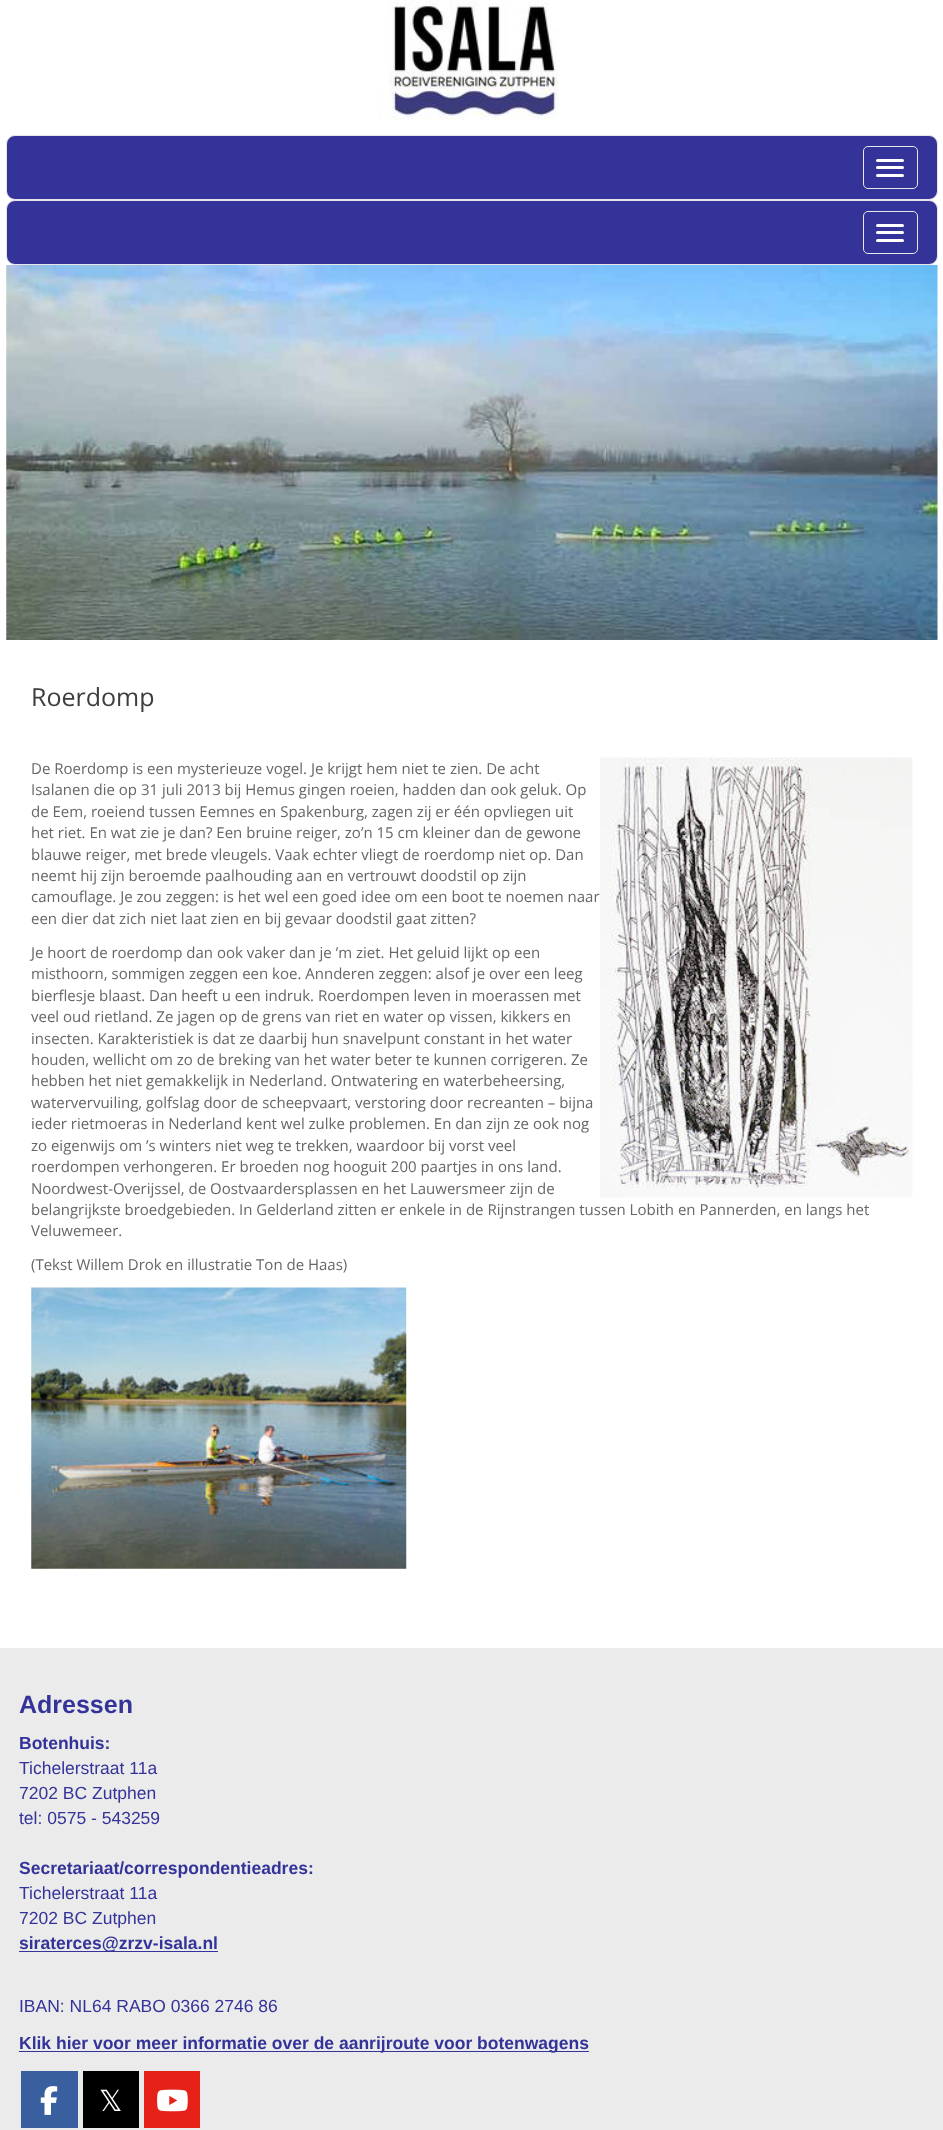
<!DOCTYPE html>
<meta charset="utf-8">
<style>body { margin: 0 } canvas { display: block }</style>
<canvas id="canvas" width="943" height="2130"></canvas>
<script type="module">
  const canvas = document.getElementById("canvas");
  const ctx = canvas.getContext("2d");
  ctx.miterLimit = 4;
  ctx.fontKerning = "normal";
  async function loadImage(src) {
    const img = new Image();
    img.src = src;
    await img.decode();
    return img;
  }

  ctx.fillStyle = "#ffffff";
  ctx.fillRect(0, 0, 943, 2130);
  ctx.drawImage(await loadImage("img1.png"), 379, 0, 180, 121);
  ctx.fillStyle = "#343399";
  ctx.beginPath();
  ctx.roundRect(6.5, 135.5, 931, 64, 8.5);
  ctx.fill();
  ctx.strokeStyle = "#e7e7e7";
  ctx.stroke();
  ctx.beginPath();
  ctx.roundRect(863.5, 146.5, 54, 42, 4.5);
  ctx.stroke();
  ctx.fillStyle = "#ffffff";
  ctx.beginPath();
  ctx.roundRect(876, 159, 28, 3, 1.5);
  ctx.fill();
  ctx.beginPath();
  ctx.roundRect(876, 166, 28, 3, 1.5);
  ctx.fill();
  ctx.beginPath();
  ctx.roundRect(876, 174, 28, 3, 1.5);
  ctx.fill();
  ctx.fillStyle = "#343399";
  ctx.beginPath();
  ctx.roundRect(6.5, 200.5, 931, 64, 8.5);
  ctx.fill();
  ctx.stroke();
  ctx.beginPath();
  ctx.roundRect(863.5, 211.5, 54, 42, 4.5);
  ctx.stroke();
  ctx.fillStyle = "#ffffff";
  ctx.beginPath();
  ctx.roundRect(876, 224, 28, 3, 1.5);
  ctx.fill();
  ctx.beginPath();
  ctx.roundRect(876, 231, 28, 3, 1.5);
  ctx.fill();
  ctx.beginPath();
  ctx.roundRect(876, 239, 28, 3, 1.5);
  ctx.fill();
  ctx.drawImage(await loadImage("img2.png"), 6, 265, 932, 375);
  ctx.font = "25px Open Sans";
  ctx.fillStyle = "#3d3d3d";
  ctx.fillText("Roerdomp", 31, 706);
  ctx.font = "15px Open Sans";
  ctx.fillStyle = "#666666";
  ctx.fillText("De Roerdomp is een mysterieuze vogel. Je krijgt hem niet te zien. De acht", 31, 774);
  ctx.fillText("Isalanen die op 31 juli 2013 bij Hemus gingen roeien, hadden dan ook geluk. Op", 31, 795);
  ctx.fillText("de Eem, roeiend tussen Eemnes en Spakenburg, zagen zij er één opvliegen uit", 31, 817);
  ctx.fillText("het riet. En wat zie je dan? Een bruine reiger, zo’n 15 cm kleiner dan de gewone", 31, 838);
  ctx.fillText("blauwe reiger, met brede vleugels. Vaak echter vliegt de roerdomp niet op. Dan", 31, 860);
  ctx.fillText("neemt hij zijn beroemde paalhouding aan en vertrouwt doodstil op zijn", 31, 881);
  ctx.fillText("camouflage. Je zou zeggen: is het wel een goed idee om een boot te noemen naar", 31, 902);
  ctx.fillText("een dier dat zich niet laat zien en bij gevaar doodstil gaat zitten?", 31, 924);
  ctx.drawImage(await loadImage("img3.png"), 600, 757, 313, 441);
  ctx.fillText("Je hoort de roerdomp dan ook vaker dan je ’m ziet. Het geluid lijkt op een", 31, 958);
  ctx.fillText("misthoorn, sommigen zeggen een koe. Annderen zeggen: alsof je over een leeg", 31, 979);
  ctx.fillText("bierflesje blaast. Dan heeft u een indruk. Roerdompen leven in moerassen met", 31, 1001);
  ctx.fillText("veel oud rietland. Ze jagen op de grens van riet en water op vissen, kikkers en", 31, 1022);
  ctx.fillText("insecten. Karakteristiek is dat ze daarbij hun snavelpunt constant in het water", 31, 1044);
  ctx.fillText("houden, wellicht om zo de breking van het water beter te kunnen corrigeren. Ze", 31, 1065);
  ctx.fillText("hebben het niet gemakkelijk in Nederland. Ontwatering en waterbeheersing,", 31, 1086);
  ctx.fillText("watervervuiling, golfslag door de scheepvaart, verstoring door recreanten – bijna", 31, 1108);
  ctx.fillText("ieder rietmoeras in Nederland kent wel zulke problemen. En dan zijn ze ook nog", 31, 1129);
  ctx.fillText("zo eigenwijs om ’s winters niet weg te trekken, waardoor bij vorst veel", 31, 1151);
  ctx.fillText("roerdompen verhongeren. Er broeden nog hooguit 200 paartjes in ons land.", 31, 1172);
  ctx.fillText("Noordwest-Overijssel, de Oostvaardersplassen en het Lauwersmeer zijn de", 31, 1194);
  ctx.fillText("belangrijkste broedgebieden. In Gelderland zitten er enkele in de Rijnstrangen tussen Lobith en Pannerden, en langs het", 31, 1215);
  ctx.fillText("Veluwemeer.", 31, 1236);
  ctx.fillText("(Tekst Willem Drok en illustratie Ton de Haas)", 31, 1270);
  ctx.drawImage(await loadImage("img4.png"), 31, 1287, 376, 282);
  ctx.fillStyle = "#ebebeb";
  ctx.fillRect(0, 1648, 943, 482);
  ctx.font = "bold 25px Liberation Sans";
  ctx.fillStyle = "#343399";
  ctx.fillText("Adressen", 19, 1713);
  ctx.font = "bold 17.5px Liberation Sans";
  ctx.fillText("Botenhuis:", 19, 1749);
  ctx.font = "17.5px Liberation Sans";
  ctx.fillText("Tichelerstraat 11a", 19, 1774);
  ctx.fillText("7202 BC Zutphen", 19, 1799);
  ctx.fillText("tel: 0575 - 543259", 19, 1824);
  ctx.font = "bold 17.5px Liberation Sans";
  ctx.fillText("Secretariaat/correspondentieadres:", 19, 1874);
  ctx.font = "17.5px Liberation Sans";
  ctx.fillText("Tichelerstraat 11a", 19, 1899);
  ctx.fillText("7202 BC Zutphen", 19, 1924);
  ctx.fillRect(19, 1951, 199, 1);
  ctx.font = "bold 17.5px Liberation Sans";
  ctx.fillText("siraterces@zrzv-isala.nl", 19, 1949);
  ctx.font = "17.5px Liberation Sans";
  ctx.fillText("IBAN: NL64 RABO 0366 2746 86", 19, 2012);
  ctx.fillRect(19, 2051, 570, 1);
  ctx.font = "bold 17.5px Liberation Sans";
  ctx.fillText("Klik hier voor meer informatie over de aanrijroute voor botenwagens", 19, 2049);
  ctx.fillStyle = "#395f9e";
  ctx.fillRect(21, 2071, 57, 57);
  ctx.drawImage(await loadImage("img5.png"), 40, 2086, 18, 29);
  ctx.fillStyle = "#000000";
  ctx.fillRect(83, 2071, 56, 57);
  ctx.font = "29px DejaVu Sans";
  ctx.fillStyle = "#ffffff";
  ctx.fillText("𝕏", 99, 2111);
  ctx.fillStyle = "#e62117";
  ctx.fillRect(144, 2071, 56, 57);
  ctx.drawImage(await loadImage("img6.png"), 157, 2089, 31, 23);
</script>
